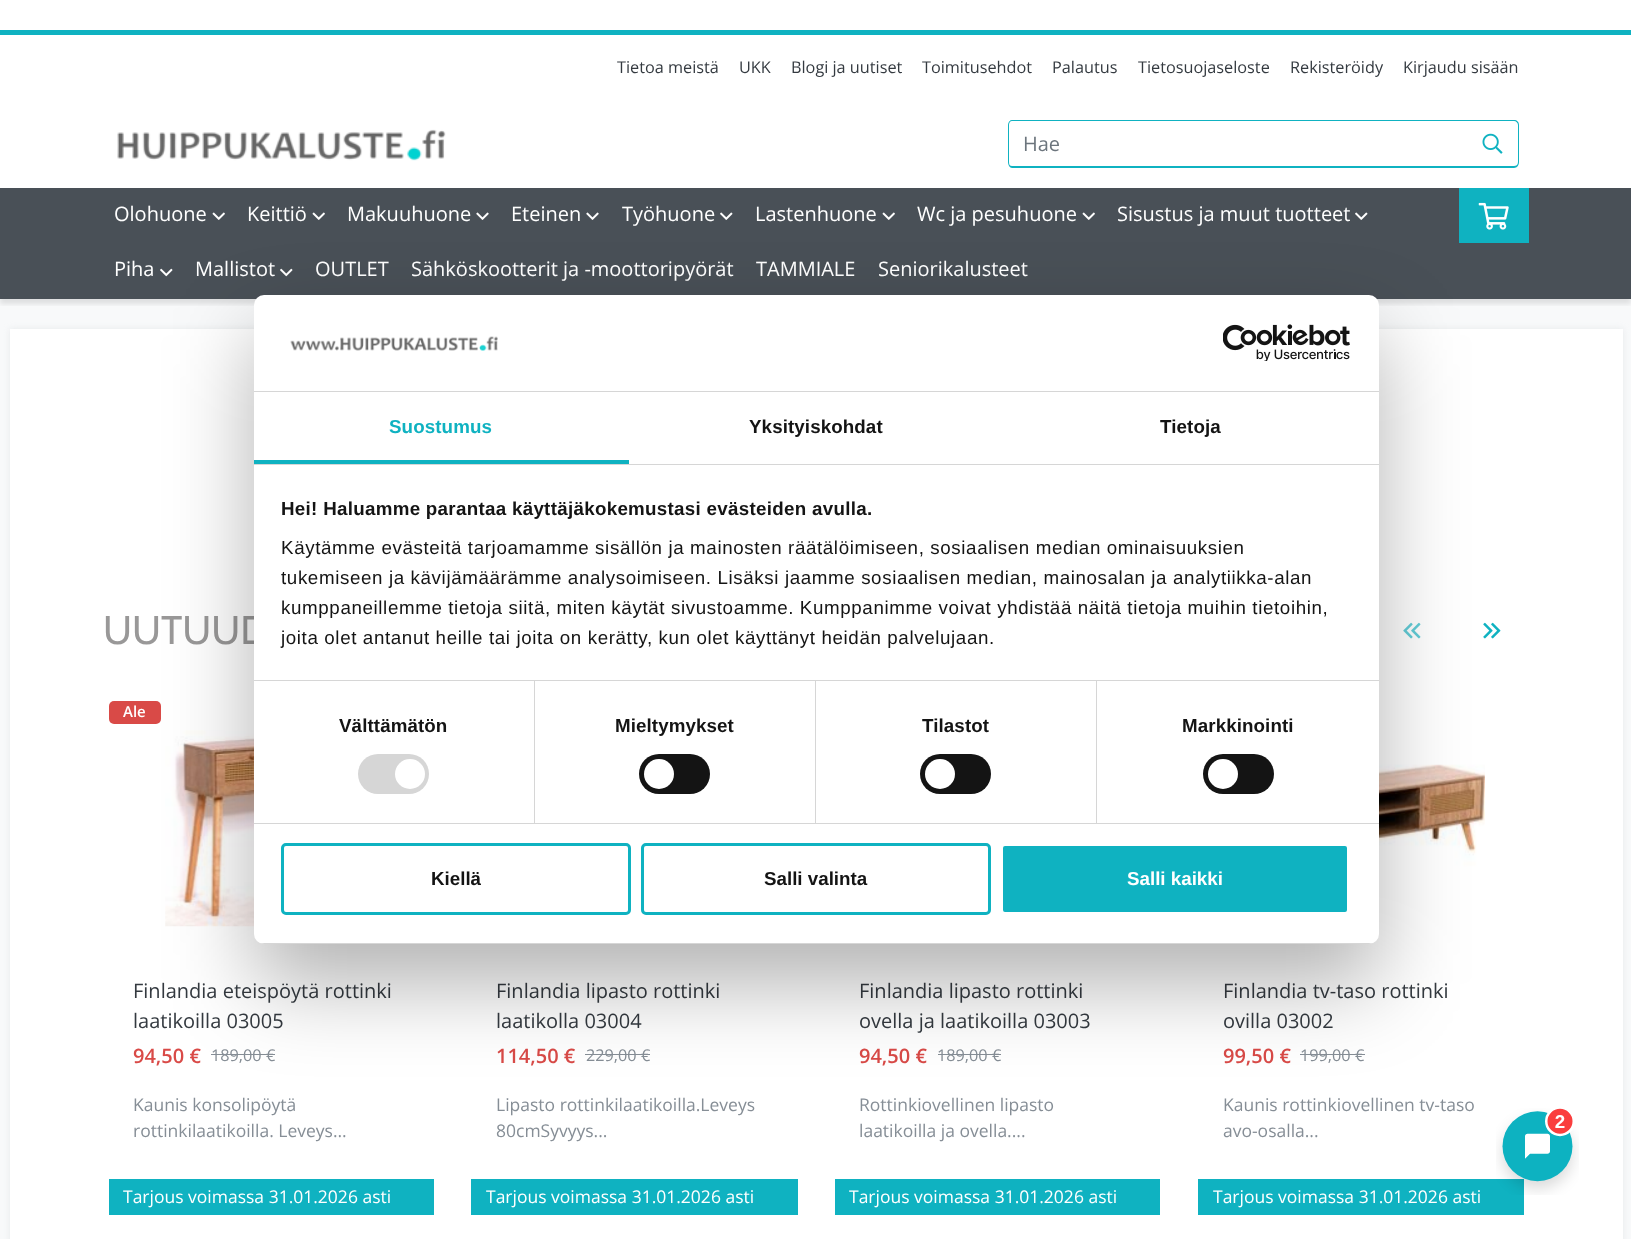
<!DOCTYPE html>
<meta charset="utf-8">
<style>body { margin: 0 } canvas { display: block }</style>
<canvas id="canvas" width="1631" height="1239"></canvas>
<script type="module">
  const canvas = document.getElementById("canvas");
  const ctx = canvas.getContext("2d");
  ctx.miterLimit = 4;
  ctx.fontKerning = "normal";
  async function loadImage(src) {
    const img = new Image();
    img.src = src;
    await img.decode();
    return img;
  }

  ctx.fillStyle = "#ffffff";
  ctx.fillRect(0, 0, 1631, 1239);
  ctx.fillStyle = "#f8f9fa";
  ctx.fillRect(0, 299, 1631, 940);
  ctx.save();
  ctx.beginPath();
  ctx.rect(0, 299, 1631, 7);
  ctx.clip();
  ctx.fillStyle = "rgba(0, 0, 0, 0.1)";
  ctx.filter = "blur(2.5px)";
  ctx.beginPath();
  ctx.rect(0, 35, 1631, 269);
  ctx.fill();
  ctx.filter = "none";
  ctx.restore();
  ctx.fillStyle = "#0fb2c1";
  ctx.fillRect(0, 30, 1631, 5);
  ctx.font = "16.25px Open Sans";
  ctx.fillStyle = "#343a40";
  ctx.fillText("Tietoa meistä", 617, 73);
  ctx.fillText("UKK", 739, 73);
  ctx.fillText("Blogi ja uutiset", 791, 73);
  ctx.fillText("Toimitusehdot", 922, 73);
  ctx.fillText("Palautus", 1052, 73);
  ctx.fillText("Tietosuojaseloste", 1138, 73);
  ctx.fillText("Rekisteröidy", 1290, 73);
  ctx.fillText("Kirjaudu sisään", 1403, 73);
  ctx.drawImage(await loadImage("img1.png"), 117, 129, 329, 32);
  ctx.fillStyle = "#0fb2c1";
  ctx.beginPath();
  ctx.moveTo(1012, 120);
  ctx.lineTo(1469, 120);
  ctx.lineTo(1469, 168);
  ctx.lineTo(1012, 168);
  ctx.bezierCurveTo(1010, 168, 1008, 165, 1008, 162);
  ctx.lineTo(1008, 125);
  ctx.bezierCurveTo(1008, 122, 1010, 120, 1012, 120);
  ctx.closePath();
  ctx.moveTo(1012, 121);
  ctx.lineTo(1469, 121);
  ctx.lineTo(1469, 166);
  ctx.lineTo(1012, 166);
  ctx.bezierCurveTo(1010, 166, 1009, 165, 1009, 162);
  ctx.lineTo(1009, 125);
  ctx.bezierCurveTo(1009, 123, 1010, 121, 1012, 121);
  ctx.closePath();
  ctx.fill("evenodd");
  ctx.font = "20px Open Sans";
  ctx.fillStyle = "#6c757d";
  ctx.fillText("Hae", 1023, 151);
  ctx.fillStyle = "#0fb2c1";
  ctx.beginPath();
  ctx.moveTo(1468, 120);
  ctx.lineTo(1514, 120);
  ctx.bezierCurveTo(1517, 120, 1519, 122, 1519, 125);
  ctx.lineTo(1519, 162);
  ctx.bezierCurveTo(1519, 165, 1517, 168, 1514, 168);
  ctx.lineTo(1468, 168);
  ctx.closePath();
  ctx.moveTo(1468, 121);
  ctx.lineTo(1514, 121);
  ctx.bezierCurveTo(1516, 121, 1518, 123, 1518, 125);
  ctx.lineTo(1518, 162);
  ctx.bezierCurveTo(1518, 165, 1516, 166, 1514, 166);
  ctx.lineTo(1468, 166);
  ctx.closePath();
  ctx.fill("evenodd");
  ctx.drawImage(await loadImage("img2.png"), 1482, 133, 21, 21);
  ctx.fillStyle = "#495057";
  ctx.fillRect(0, 188, 1631, 111);
  ctx.fillStyle = "#ffffff";
  ctx.fillText("Olohuone", 114, 221);
  ctx.drawImage(await loadImage("img3.png"), 212, 212, 13, 8);
  ctx.fillText("Keittiö", 247, 221);
  ctx.drawImage(await loadImage("img3.png"), 312, 212, 13, 8);
  ctx.fillText("Makuuhuone", 347, 221);
  ctx.drawImage(await loadImage("img4.png"), 476, 212, 13, 8);
  ctx.fillText("Eteinen", 511, 221);
  ctx.drawImage(await loadImage("img4.png"), 586, 212, 13, 8);
  ctx.fillText("Työhuone", 622, 221);
  ctx.drawImage(await loadImage("img5.png"), 720, 212, 13, 8);
  ctx.fillText("Lastenhuone", 755, 221);
  ctx.drawImage(await loadImage("img3.png"), 882, 212, 13, 8);
  ctx.fillText("Wc ja pesuhuone", 917, 221);
  ctx.drawImage(await loadImage("img3.png"), 1082, 212, 13, 8);
  ctx.fillText("Sisustus ja muut tuotteet", 1117, 221);
  ctx.drawImage(await loadImage("img5.png"), 1355, 212, 13, 8);
  ctx.fillText("Piha", 114, 276);
  ctx.drawImage(await loadImage("img6.png"), 160, 268, 13, 9);
  ctx.fillText("Mallistot", 195, 276);
  ctx.drawImage(await loadImage("img6.png"), 280, 268, 13, 9);
  ctx.fillText("OUTLET", 315, 276);
  ctx.fillText("Sähköskootterit ja -moottoripyörät", 411, 276);
  ctx.fillText("TAMMIALE", 756, 276);
  ctx.fillText("Seniorikalusteet", 878, 276);
  ctx.fillStyle = "#0fb2c1";
  ctx.fillRect(1459, 188, 70, 55);
  ctx.drawImage(await loadImage("img7.png"), 1478, 202, 31, 28);
  ctx.fillStyle = "rgba(222, 226, 230, 0.7)";
  ctx.filter = "blur(3px)";
  ctx.beginPath();
  ctx.rect(10, 329, 1613, 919);
  ctx.fill();
  ctx.filter = "none";
  ctx.fillStyle = "#ffffff";
  ctx.fillRect(10, 329, 1613, 910);
  ctx.font = "40px Cabin";
  ctx.fillStyle = "#999898";
  ctx.fillText("UUTUUD", 103, 644);
  ctx.drawImage(await loadImage("img8.png"), 1403, 622, 18, 17);
  ctx.drawImage(await loadImage("img9.png"), 1483, 622, 18, 17);
  ctx.fillStyle = "#d94a47";
  ctx.beginPath();
  ctx.roundRect(109, 701, 52, 23, 5);
  ctx.fill();
  ctx.font = "600 15px Open Sans";
  ctx.fillStyle = "#ffffff";
  ctx.fillText("Ale", 123, 717);
  ctx.drawImage(await loadImage("img10.png"), 165, 730, 89, 197);
  ctx.font = "20px Open Sans";
  ctx.fillStyle = "#343a40";
  ctx.fillText("Finlandia eteispöytä rottinki", 133, 998);
  ctx.fillText("laatikoilla 03005", 133, 1028);
  ctx.font = "600 20px Open Sans";
  ctx.fillStyle = "#d94a47";
  ctx.fillText("94,50 €", 133, 1063);
  ctx.font = "16.25px Open Sans";
  ctx.fillStyle = "#868e96";
  ctx.fillText("189,00 €", 211, 1061);
  ctx.fillRect(211, 1054, 64, 1);
  ctx.font = "17.5px Open Sans";
  ctx.fillText("Kaunis konsolipöytä", 133, 1111);
  ctx.fillText("rottinkilaatikoilla. Leveys...", 133, 1137);
  ctx.fillStyle = "#0fb2c1";
  ctx.fillRect(109, 1179, 325, 36);
  ctx.fillStyle = "#ffffff";
  ctx.fillText("Tarjous voimassa 31.01.2026 asti", 123, 1203);
  ctx.font = "20px Open Sans";
  ctx.fillStyle = "#343a40";
  ctx.fillText("Finlandia lipasto rottinki", 496, 998);
  ctx.fillText("laatikolla 03004", 496, 1028);
  ctx.font = "600 20px Open Sans";
  ctx.fillStyle = "#d94a47";
  ctx.fillText("114,50 €", 496, 1063);
  ctx.font = "16.25px Open Sans";
  ctx.fillStyle = "#868e96";
  ctx.fillText("229,00 €", 586, 1061);
  ctx.fillRect(585, 1054, 65, 1);
  ctx.font = "17.5px Open Sans";
  ctx.fillText("Lipasto rottinkilaatikoilla.Leveys", 496, 1111);
  ctx.fillText("80cmSyvyys...", 496, 1137);
  ctx.fillStyle = "#0fb2c1";
  ctx.fillRect(471, 1179, 327, 36);
  ctx.fillStyle = "#ffffff";
  ctx.fillText("Tarjous voimassa 31.01.2026 asti", 486, 1203);
  ctx.font = "20px Open Sans";
  ctx.fillStyle = "#343a40";
  ctx.fillText("Finlandia lipasto rottinki", 859, 998);
  ctx.fillText("ovella ja laatikoilla 03003", 859, 1028);
  ctx.font = "600 20px Open Sans";
  ctx.fillStyle = "#d94a47";
  ctx.fillText("94,50 €", 859, 1063);
  ctx.font = "16.25px Open Sans";
  ctx.fillStyle = "#868e96";
  ctx.fillText("189,00", 937, 1061);
  ctx.fillRect(938, 1054, 55, 1);
  ctx.fillText("€", 992, 1061);
  ctx.fillRect(993, 1054, 8, 1);
  ctx.font = "17.5px Open Sans";
  ctx.fillText("Rottinkiovellinen lipasto", 859, 1111);
  ctx.fillText("laatikoilla ja ovella....", 859, 1137);
  ctx.fillStyle = "#0fb2c1";
  ctx.fillRect(835, 1179, 325, 36);
  ctx.fillStyle = "#ffffff";
  ctx.fillText("Tarjous voimassa 31.01.2026 asti", 849, 1203);
  ctx.drawImage(await loadImage("img11.png"), 1379, 764, 106, 124);
  ctx.font = "20px Open Sans";
  ctx.fillStyle = "#343a40";
  ctx.fillText("Finlandia tv-taso rottinki", 1223, 998);
  ctx.fillText("ovilla 03002", 1223, 1028);
  ctx.font = "600 20px Open Sans";
  ctx.fillStyle = "#d94a47";
  ctx.fillText("99,50 €", 1223, 1063);
  ctx.font = "16.25px Open Sans";
  ctx.fillStyle = "#868e96";
  ctx.fillText("199,00 €", 1300, 1061);
  ctx.fillRect(1300, 1054, 65, 1);
  ctx.font = "17.5px Open Sans";
  ctx.fillText("Kaunis rottinkiovellinen tv-taso", 1223, 1111);
  ctx.fillText("avo-osalla...", 1223, 1137);
  ctx.fillStyle = "#0fb2c1";
  ctx.fillRect(1198, 1179, 326, 36);
  ctx.fillStyle = "#ffffff";
  ctx.fillText("Tarjous voimassa 31.01.2026 asti", 1213, 1203);
  ctx.drawImage(await loadImage("img14.png"), 1496, 1108, 83, 87);
  ctx.fillStyle = "rgba(0, 0, 0, 0.3)";
  ctx.filter = "blur(42.5px)";
  ctx.beginPath();
  ctx.roundRect(254, 335, 1125, 649, 10);
  ctx.fill();
  ctx.filter = "none";
  ctx.fillStyle = "#ffffff";
  ctx.beginPath();
  ctx.roundRect(254, 295, 1125, 649, 10);
  ctx.fill();
  ctx.fillStyle = "#d6d6d6";
  ctx.fillRect(254, 391, 1125, 1);
  ctx.drawImage(await loadImage("img12.png"), 290, 336, 208, 15);
  ctx.drawImage(await loadImage("img13.png"), 1223, 324, 127, 37);
  ctx.fillRect(254, 464, 1125, 1);
  ctx.fillStyle = "#0fb2c1";
  ctx.fillRect(254, 460, 375, 4);
  ctx.letterSpacing = "0.1px";
  ctx.font = "bold 18.75px Liberation Sans";
  ctx.fillText("Suostumus", 389, 433);
  ctx.fillStyle = "#141414";
  ctx.fillText("Yksityiskohdat", 749, 433);
  ctx.fillText("Tietoja", 1160, 433);
  ctx.fillStyle = "#d6d6d6";
  ctx.fillRect(254, 680, 1125, 1);
  ctx.letterSpacing = "0.3px";
  ctx.fillStyle = "#141414";
  ctx.fillText("Hei! Haluamme parantaa käyttäjäkokemustasi evästeiden avulla.", 281, 515);
  ctx.letterSpacing = "0.62px";
  ctx.font = "18.75px Liberation Sans";
  ctx.fillText("Käytämme evästeitä tarjoamamme sisällön ja mainosten räätälöimiseen, sosiaalisen median ominaisuuksien", 281, 554);
  ctx.fillText("tukemiseen ja kävijämäärämme analysoimiseen. Lisäksi jaamme sosiaalisen median, mainosalan ja analytiikka-alan", 281, 584);
  ctx.fillText("kumppaneillemme tietoja siitä, miten käytät sivustoamme. Kumppanimme voivat yhdistää näitä tietoja muihin tietoihin,", 281, 614);
  ctx.fillText("joita olet antanut heille tai joita on kerätty, kun olet käyttänyt heidän palvelujaan.", 281, 644);
  ctx.fillStyle = "#d6d6d6";
  ctx.fillRect(254, 823, 1125, 1);
  ctx.fillRect(534, 681, 1, 142);
  ctx.letterSpacing = "0.1px";
  ctx.font = "bold 18.75px Liberation Sans";
  ctx.fillStyle = "#141414";
  ctx.fillText("Välttämätön", 339, 732);
  ctx.fillStyle = "#d6d6d6";
  ctx.beginPath();
  ctx.roundRect(358, 754, 71, 40, 20);
  ctx.fill();
  ctx.fillStyle = "#ffffff";
  ctx.beginPath();
  ctx.arc(410, 774, 15, 0, Math.PI * 2);
  ctx.fill();
  ctx.fillStyle = "#d6d6d6";
  ctx.fillRect(815, 681, 1, 142);
  ctx.fillStyle = "#141414";
  ctx.fillText("Mieltymykset", 615, 732);
  ctx.beginPath();
  ctx.roundRect(639, 754, 71, 40, 20);
  ctx.fill();
  ctx.fillStyle = "#ffffff";
  ctx.beginPath();
  ctx.arc(659, 774, 15, 0, Math.PI * 2);
  ctx.fill();
  ctx.fillStyle = "#d6d6d6";
  ctx.fillRect(1096, 681, 1, 142);
  ctx.fillStyle = "#141414";
  ctx.fillText("Tilastot", 922, 732);
  ctx.beginPath();
  ctx.roundRect(920, 754, 71, 40, 20);
  ctx.fill();
  ctx.fillStyle = "#ffffff";
  ctx.beginPath();
  ctx.arc(940, 774, 15, 0, Math.PI * 2);
  ctx.fill();
  ctx.fillStyle = "#141414";
  ctx.fillText("Markkinointi", 1182, 732);
  ctx.beginPath();
  ctx.roundRect(1203, 754, 71, 40, 20);
  ctx.fill();
  ctx.fillStyle = "#ffffff";
  ctx.beginPath();
  ctx.arc(1223, 774, 15, 0, Math.PI * 2);
  ctx.fill();
  ctx.save();
  ctx.beginPath();
  ctx.roundRect(254, 295, 1125, 649, 10);
  ctx.clip();
  ctx.fillStyle = "#d6d6d6";
  ctx.fillRect(254, 943, 1125, 1);
  ctx.restore();
  ctx.beginPath();
  ctx.roundRect(282.5, 844.5, 347, 69, 3.5);
  ctx.strokeStyle = "#0fb2c1";
  ctx.lineWidth = 3;
  ctx.stroke();
  ctx.letterSpacing = "0px";
  ctx.fillStyle = "#141414";
  ctx.fillText("Kiellä", 431, 885);
  ctx.beginPath();
  ctx.roundRect(642.5, 844.5, 347, 69, 3.5);
  ctx.stroke();
  ctx.fillText("Salli valinta", 764, 885);
  ctx.fillStyle = "#0fb2c1";
  ctx.beginPath();
  ctx.roundRect(1001.5, 844.5, 347, 69, 3.5);
  ctx.fill();
  ctx.strokeStyle = "#ffffff";
  ctx.stroke();
  ctx.fillStyle = "#ffffff";
  ctx.fillText("Salli kaikki", 1127, 885);
</script>
